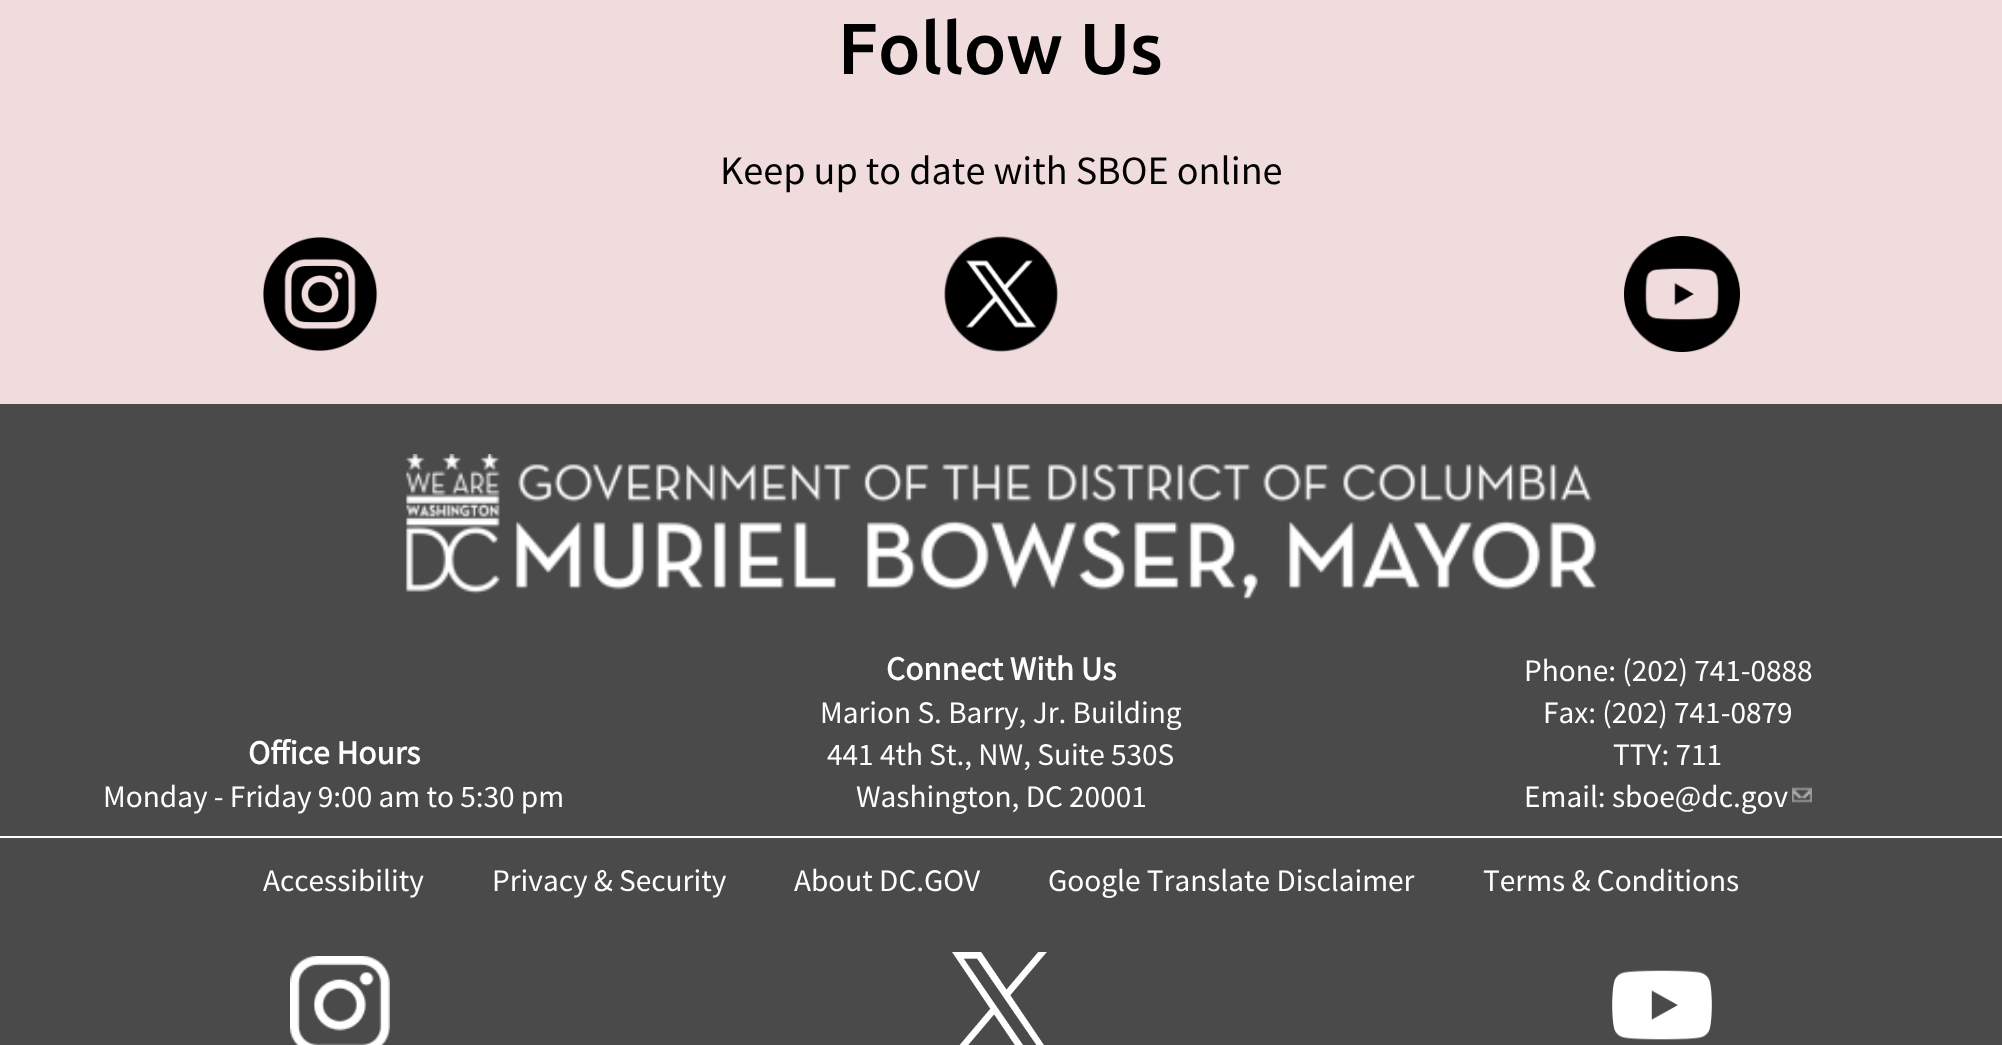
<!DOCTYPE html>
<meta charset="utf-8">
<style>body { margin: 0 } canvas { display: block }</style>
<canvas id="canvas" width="2002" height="1045"></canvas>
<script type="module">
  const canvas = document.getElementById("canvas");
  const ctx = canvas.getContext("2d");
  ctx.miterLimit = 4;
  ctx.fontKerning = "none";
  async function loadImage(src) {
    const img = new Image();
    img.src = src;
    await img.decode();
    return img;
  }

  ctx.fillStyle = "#f0dcdd";
  ctx.fillRect(0, 0, 2002, 1045);
  ctx.font = "500 72px Ubuntu";
  ctx.fillStyle = "#000000";
  ctx.fillText("Follow Us", 838, 74);
  ctx.font = "100 36px Noto Sans JP";
  ctx.fillText("Keep up to date with SBOE online", 720, 184);
  ctx.drawImage(await loadImage("img1.png"), 263, 237, 115, 115);
  ctx.drawImage(await loadImage("img2.png"), 944, 236, 114, 116);
  ctx.drawImage(await loadImage("img3.png"), 1624, 236, 116, 116);
  ctx.fillStyle = "#4a4a4a";
  ctx.fillRect(0, 404, 2002, 641);
  ctx.fillStyle = "#ffffff";
  ctx.fillRect(0, 836, 2002, 2);
  ctx.drawImage(await loadImage("img4.png"), 405, 454, 1192, 146);
  ctx.font = "bold 30px Noto Sans JP";
  ctx.fillText("Office Hours", 248, 764);
  ctx.font = "100 28px Noto Sans JP";
  ctx.fillText("Monday - Friday 9:00 am to 5:30 pm", 103, 807);
  ctx.font = "bold 30px Noto Sans JP";
  ctx.fillText("Connect With Us", 886, 680);
  ctx.font = "100 28px Noto Sans JP";
  ctx.fillText("Marion S. Barry, Jr. Building", 820, 723);
  ctx.fillText("441 4th St., NW, Suite 530S", 827, 765);
  ctx.fillText("Washington, DC 20001", 856, 807);
  ctx.fillText("Phone: (202) 741-0888", 1524, 681);
  ctx.fillText("Fax: (202) 741-0879", 1543, 723);
  ctx.fillText("TTY: 711", 1613, 765);
  ctx.fillText("Email: sboe@dc.gov", 1524, 807);
  ctx.drawImage(await loadImage("img5.png"), 1792, 787, 20, 16);
  ctx.fillText("Accessibility", 263, 891);
  ctx.fillText("Privacy & Security", 492, 891);
  ctx.fillText("About DC.GOV", 794, 891);
  ctx.fillText("Google Translate Disclaimer", 1048, 891);
  ctx.fillText("Terms & Conditions", 1483, 891);
  ctx.drawImage(await loadImage("img6.png"), 290, 956, 100, 89);
  ctx.drawImage(await loadImage("img7.png"), 952, 952, 95, 93);
  ctx.drawImage(await loadImage("img8.png"), 1612, 970, 100, 70);
</script>
